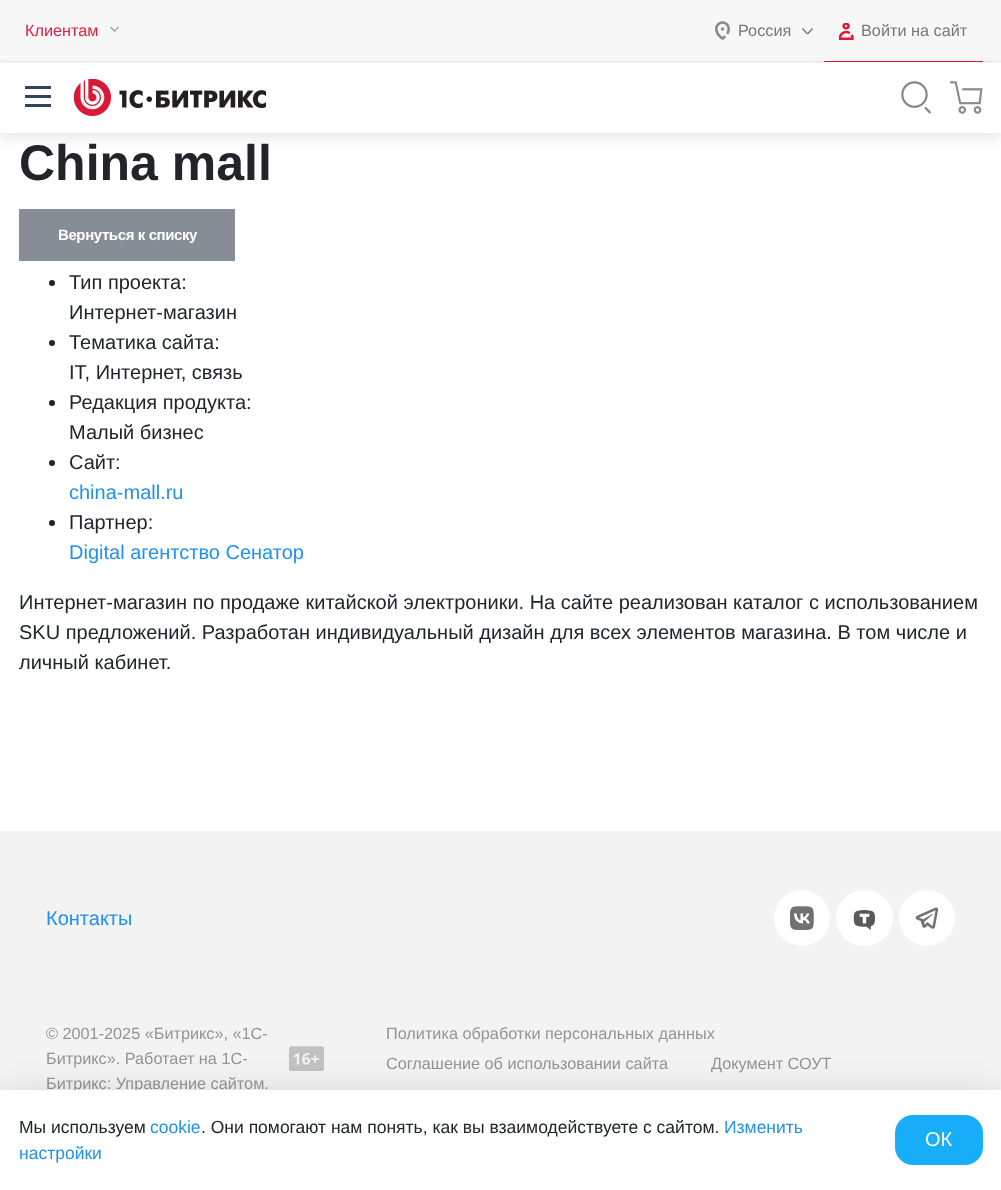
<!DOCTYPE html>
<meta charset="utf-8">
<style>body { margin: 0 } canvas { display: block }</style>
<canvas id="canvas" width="1001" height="1190"></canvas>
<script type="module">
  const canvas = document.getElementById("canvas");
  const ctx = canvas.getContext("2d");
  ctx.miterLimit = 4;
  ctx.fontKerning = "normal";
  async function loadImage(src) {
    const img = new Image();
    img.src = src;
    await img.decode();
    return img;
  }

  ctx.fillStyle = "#ffffff";
  ctx.fillRect(0, 0, 1001, 1190);
  ctx.fillStyle = "#f7f7f7";
  ctx.fillRect(0, 0, 1001, 63);
  ctx.fillStyle = "#e9e9e9";
  ctx.fillRect(0, 61, 1001, 1);
  ctx.font = "16.25px Liberation Sans";
  ctx.fillStyle = "#e41c3d";
  ctx.fillText("Клиентам", 25, 36);
  ctx.fillStyle = "#a1a1a1";
  ctx.beginPath();
  ctx.moveTo(114, 31);
  ctx.lineTo(118, 26.5);
  ctx.lineTo(119, 27.5);
  ctx.lineTo(114.5, 32);
  ctx.closePath();
  ctx.fill();
  ctx.beginPath();
  ctx.moveTo(110, 27.5);
  ctx.lineTo(111, 26.5);
  ctx.lineTo(115.5, 31);
  ctx.lineTo(114.5, 32);
  ctx.closePath();
  ctx.fill();
  ctx.drawImage(await loadImage("img1.png"), 715, 21, 15, 19);
  ctx.fillStyle = "#777777";
  ctx.fillText("Россия", 738, 36);
  ctx.beginPath();
  ctx.moveTo(803, 28);
  ctx.lineTo(808, 33.5);
  ctx.lineTo(807, 34.5);
  ctx.lineTo(802, 29);
  ctx.closePath();
  ctx.fill();
  ctx.beginPath();
  ctx.moveTo(807, 33.5);
  ctx.lineTo(812, 28);
  ctx.lineTo(813, 29);
  ctx.lineTo(808, 34.5);
  ctx.closePath();
  ctx.fill();
  ctx.fillStyle = "#e01839";
  ctx.fillRect(824, 61, 159, 1);
  ctx.drawImage(await loadImage("img2.png"), 839, 23, 15, 17);
  ctx.fillStyle = "#777777";
  ctx.fillText("Войти на сайт", 861, 36);
  ctx.fillStyle = "rgba(0, 0, 0, 0.08)";
  ctx.filter = "blur(6px)";
  ctx.beginPath();
  ctx.rect(0, 69, 1001, 70);
  ctx.fill();
  ctx.filter = "none";
  ctx.fillStyle = "#ffffff";
  ctx.fillRect(0, 63, 1001, 70);
  ctx.fillStyle = "#32425f";
  ctx.fillRect(25, 95, 26, 3);
  ctx.fillRect(25, 86, 26, 3);
  ctx.fillRect(25, 104, 26, 3);
  ctx.drawImage(await loadImage("img3.png"), 74, 79, 192, 37);
  ctx.drawImage(await loadImage("img4.png"), 901, 81, 30, 33);
  ctx.drawImage(await loadImage("img5.png"), 950, 81, 33, 33);
  ctx.font = "bold 50px Liberation Sans";
  ctx.fillStyle = "#212529";
  ctx.fillText("China mall", 19, 180);
  ctx.fillStyle = "#868d95";
  ctx.fillRect(19, 209, 216, 52);
  ctx.letterSpacing = "-0.4px";
  ctx.font = "bold 15px Liberation Sans";
  ctx.fillStyle = "#ffffff";
  ctx.fillText("Вернуться к списку", 58, 240);
  ctx.fillStyle = "#212529";
  ctx.beginPath();
  ctx.arc(52, 283, 3, 0, Math.PI * 2);
  ctx.fill();
  ctx.letterSpacing = "0px";
  ctx.font = "20px Liberation Sans";
  ctx.fillText("Тип проекта:", 69, 289);
  ctx.fillText("Интернет-магазин", 69, 319);
  ctx.beginPath();
  ctx.arc(52, 343, 3, 0, Math.PI * 2);
  ctx.fill();
  ctx.fillText("Тематика сайта:", 69, 349);
  ctx.fillText("IT, Интернет, связь", 69, 379);
  ctx.beginPath();
  ctx.arc(52, 403, 3, 0, Math.PI * 2);
  ctx.fill();
  ctx.fillText("Редакция продукта:", 69, 409);
  ctx.fillText("Малый бизнес", 69, 439);
  ctx.beginPath();
  ctx.arc(52, 463, 3, 0, Math.PI * 2);
  ctx.fill();
  ctx.fillText("Сайт:", 69, 469);
  ctx.fillStyle = "#1f90ef";
  ctx.fillText("china-mall.ru", 69, 499);
  ctx.fillStyle = "#212529";
  ctx.beginPath();
  ctx.arc(52, 523, 3, 0, Math.PI * 2);
  ctx.fill();
  ctx.fillText("Партнер:", 69, 529);
  ctx.fillStyle = "#1f90ef";
  ctx.fillText("Digital агентство Сенатор", 69, 559);
  ctx.fillStyle = "#212529";
  ctx.fillText("Интернет-магазин по продаже китайской электроники. На сайте реализован каталог с использованием", 19, 609);
  ctx.fillText("SKU предложений. Разработан индивидуальный дизайн для всех элементов магазина. В том числе и", 19, 639);
  ctx.fillText("личный кабинет.", 19, 669);
  ctx.fillStyle = "#f3f3f3";
  ctx.fillRect(0, 831, 1001, 259);
  ctx.fillStyle = "#1f90ef";
  ctx.fillText("Контакты", 46, 925);
  ctx.fillStyle = "#ffffff";
  ctx.beginPath();
  ctx.arc(802, 918, 28, 0, Math.PI * 2);
  ctx.fill();
  ctx.drawImage(await loadImage("img6.png"), 790, 906, 24, 24);
  ctx.beginPath();
  ctx.roundRect(836, 890, 57, 56, 28);
  ctx.fill();
  ctx.drawImage(await loadImage("img7.png"), 853, 910, 22, 20);
  ctx.beginPath();
  ctx.arc(927, 918, 28, 0, Math.PI * 2);
  ctx.fill();
  ctx.drawImage(await loadImage("img8.png"), 915, 907, 24, 22);
  ctx.font = "16.25px Liberation Sans";
  ctx.fillStyle = "#939495";
  ctx.fillText("© 2001-2025 «Битрикс», «1С-", 46, 1039);
  ctx.fillText("Битрикс». Работает на 1С-", 46, 1064);
  ctx.fillText("Битрикс: Управление сайтом.", 46, 1089);
  ctx.drawImage(await loadImage("img9.png"), 289, 1046, 35, 25);
  ctx.fillText("Политика обработки персональных данных", 386, 1039);
  ctx.fillText("Соглашение об использовании сайта", 386, 1069);
  ctx.fillText("Документ СОУТ", 711, 1069);
  ctx.fillStyle = "rgba(0, 0, 0, 0.1)";
  ctx.filter = "blur(15px)";
  ctx.beginPath();
  ctx.rect(0, 1090, 1001, 100);
  ctx.fill();
  ctx.filter = "none";
  ctx.fillStyle = "#ffffff";
  ctx.fillRect(0, 1090, 1001, 100);
  ctx.font = "17.5px Liberation Sans";
  ctx.fillStyle = "#212529";
  ctx.fillText("Мы используем", 19, 1133);
  ctx.fillStyle = "#1f90ef";
  ctx.fillText("cookie", 150, 1133);
  ctx.fillStyle = "#212529";
  ctx.fillText(". Они помогают нам понять, как вы взаимодействуете с сайтом.", 201, 1133);
  ctx.fillStyle = "#1f90ef";
  ctx.fillText("Изменить", 724, 1133);
  ctx.fillText("настройки", 19, 1159);
  ctx.fillStyle = "#19aef9";
  ctx.beginPath();
  ctx.roundRect(895, 1115, 88, 50, 18);
  ctx.fill();
  ctx.font = "20px Liberation Sans";
  ctx.fillStyle = "#ffffff";
  ctx.fillText("ОК", 925, 1146);
</script>
